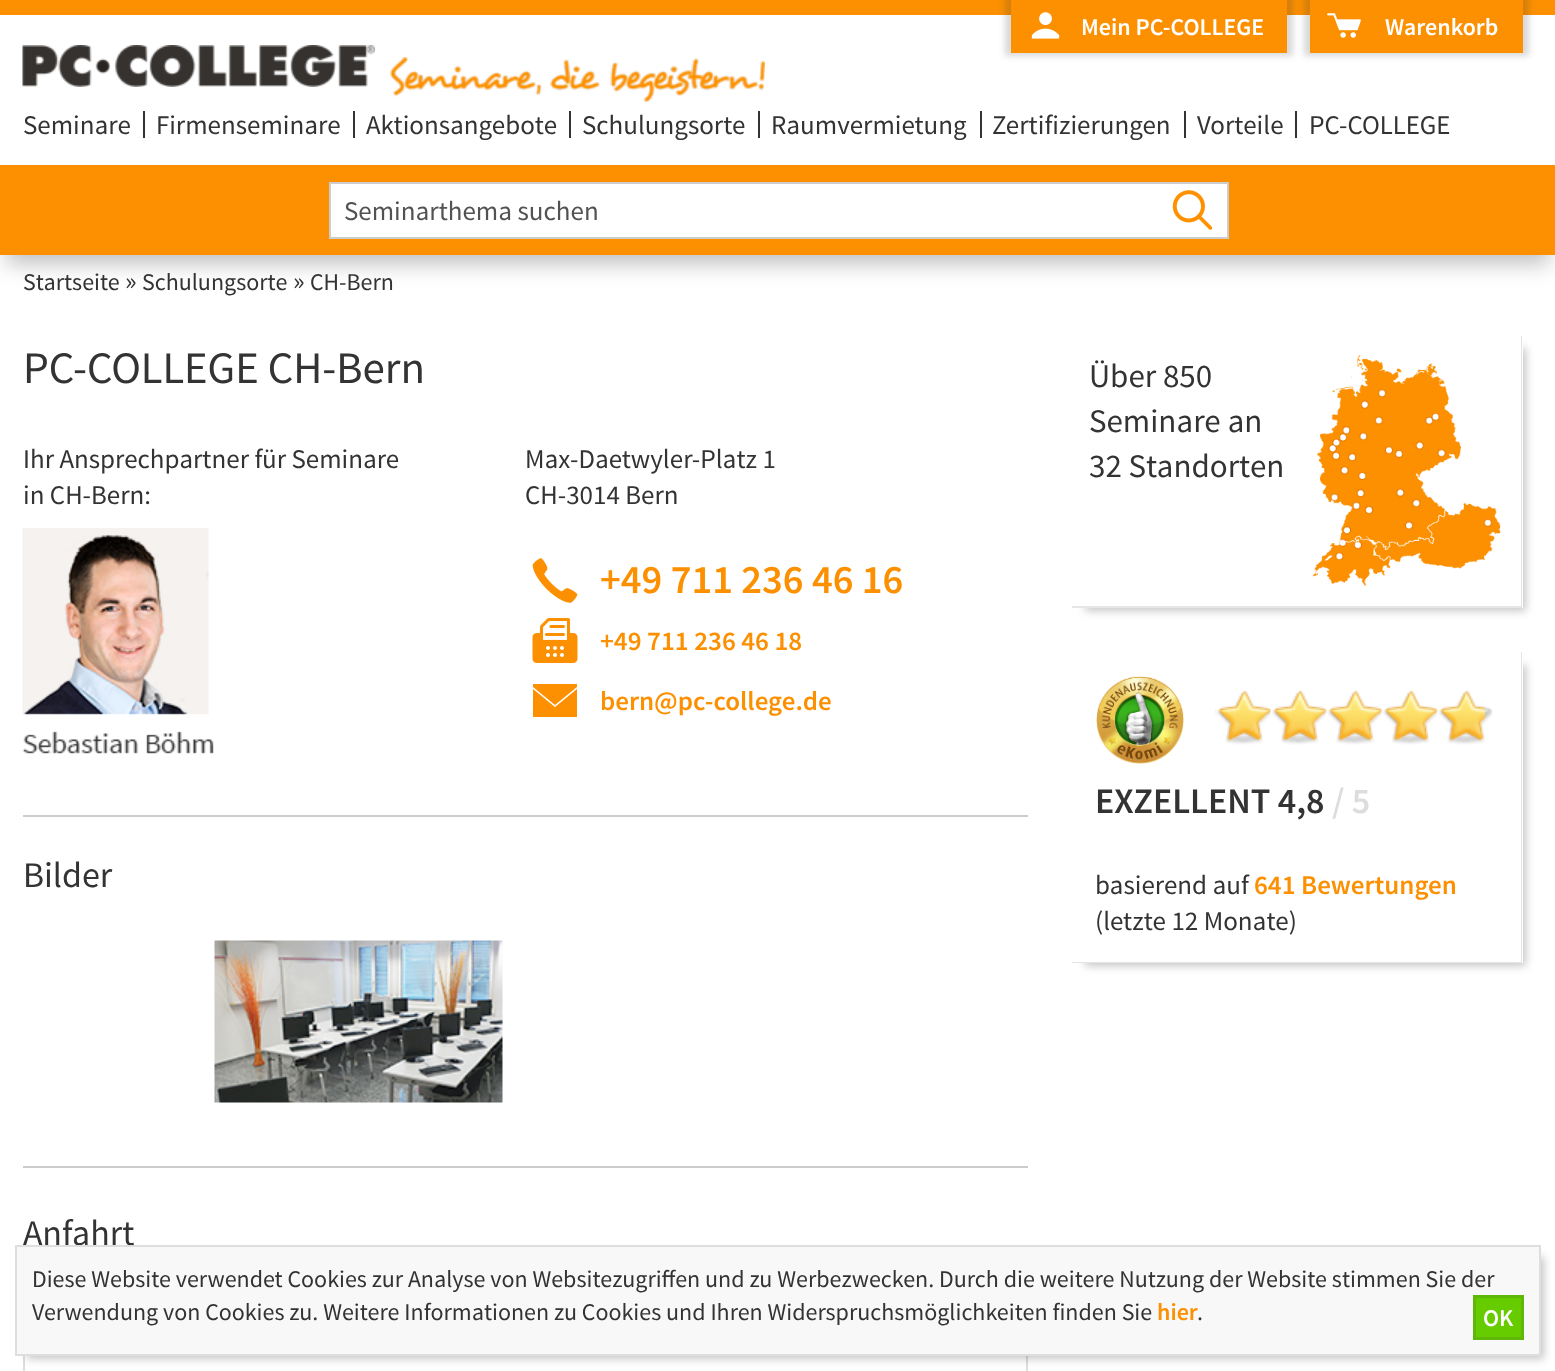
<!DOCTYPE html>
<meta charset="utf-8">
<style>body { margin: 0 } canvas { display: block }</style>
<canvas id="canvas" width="1555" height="1371"></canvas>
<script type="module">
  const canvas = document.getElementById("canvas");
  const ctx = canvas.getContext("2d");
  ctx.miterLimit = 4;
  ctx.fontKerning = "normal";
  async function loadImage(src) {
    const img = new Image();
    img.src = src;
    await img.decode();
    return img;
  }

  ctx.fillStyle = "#ffffff";
  ctx.fillRect(0, 0, 1555, 1371);
  ctx.fillStyle = "rgba(51, 51, 51, 0.3)";
  ctx.filter = "blur(10.5px)";
  ctx.beginPath();
  ctx.rect(6, 21, 1544, 243);
  ctx.fill();
  ctx.filter = "none";
  ctx.fillStyle = "#fc9000";
  ctx.fillRect(0, 0, 1555, 255);
  ctx.fillStyle = "#ffffff";
  ctx.fillRect(0, 15, 1555, 150);
  ctx.fillStyle = "rgba(60, 60, 60, 0.2)";
  ctx.filter = "blur(3px)";
  ctx.beginPath();
  ctx.rect(1005, -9, 288, 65);
  ctx.fill();
  ctx.filter = "none";
  ctx.fillStyle = "#fc9000";
  ctx.fillRect(1011, 0, 276, 53);
  ctx.drawImage(await loadImage("img1.png"), 1031, 12, 29, 27);
  ctx.font = "600 24px Source Sans Pro";
  ctx.fillStyle = "#ffffff";
  ctx.fillText("Mein PC-COLLEGE", 1081, 35);
  ctx.fillStyle = "rgba(60, 60, 60, 0.2)";
  ctx.filter = "blur(3px)";
  ctx.beginPath();
  ctx.rect(1304, -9, 225, 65);
  ctx.fill();
  ctx.filter = "none";
  ctx.fillStyle = "#fc9000";
  ctx.fillRect(1310, 0, 213, 53);
  ctx.drawImage(await loadImage("img2.png"), 1327, 13, 34, 25);
  ctx.fillStyle = "#ffffff";
  ctx.fillText("Warenkorb", 1385, 35);
  ctx.drawImage(await loadImage("img3.png"), 22, 45, 353, 42);
  ctx.drawImage(await loadImage("img4.png"), 390, 57, 375, 45);
  ctx.fillStyle = "#333333";
  ctx.fillRect(143, 111, 2, 27);
  ctx.font = "27px Source Sans Pro";
  ctx.fillText("Seminare", 23, 134);
  ctx.fillRect(353, 111, 2, 27);
  ctx.fillText("Firmenseminare", 156, 134);
  ctx.fillRect(569, 111, 2, 27);
  ctx.fillText("Aktionsangebote", 366, 134);
  ctx.fillRect(758, 111, 2, 27);
  ctx.fillText("Schulungsorte", 582, 134);
  ctx.fillRect(980, 111, 2, 27);
  ctx.fillText("Raumvermietung", 771, 134);
  ctx.fillRect(1184, 111, 2, 27);
  ctx.fillText("Zertifizierungen", 992, 134);
  ctx.fillRect(1295, 111, 2, 27);
  ctx.fillText("Vorteile", 1197, 134);
  ctx.fillText("PC-COLLEGE", 1309, 134);
  ctx.fillStyle = "#ffffff";
  ctx.beginPath();
  ctx.rect(330, 183, 898, 55);
  ctx.fill();
  ctx.strokeStyle = "#cccccc";
  ctx.lineWidth = 2;
  ctx.stroke();
  ctx.fillStyle = "#525252";
  ctx.fillText("Seminarthema suchen", 344, 220);
  ctx.drawImage(await loadImage("img5.png"), 1172, 190, 41, 40);
  ctx.font = "24px Source Sans Pro";
  ctx.fillStyle = "#333333";
  ctx.fillText("Startseite", 23, 290);
  ctx.font = "27px Source Sans Pro";
  ctx.fillText("»", 125, 290);
  ctx.font = "24px Source Sans Pro";
  ctx.fillText("Schulungsorte", 142, 290);
  ctx.font = "27px Source Sans Pro";
  ctx.fillText("»", 293, 290);
  ctx.font = "24px Source Sans Pro";
  ctx.fillText("CH-Bern", 310, 290);
  ctx.font = "45px Source Sans Pro";
  ctx.fillText("PC-COLLEGE CH-Bern", 23, 383);
  ctx.font = "27px Source Sans Pro";
  ctx.fillText("Ihr Ansprechpartner für Seminare", 23, 468);
  ctx.fillText("in CH-Bern:", 23, 504);
  ctx.drawImage(await loadImage("img6.png"), 22, 528, 192, 226);
  ctx.fillText("Max-Daetwyler-Platz 1", 525, 468);
  ctx.fillText("CH-3014 Bern", 525, 504);
  ctx.drawImage(await loadImage("img7.png"), 532, 558, 46, 45);
  ctx.font = "600 40.5px Source Sans Pro";
  ctx.fillStyle = "#fc9000";
  ctx.fillText("+49 711 236 46 16", 600, 593);
  ctx.drawImage(await loadImage("img8.png"), 532, 618, 46, 45);
  ctx.font = "600 27px Source Sans Pro";
  ctx.fillText("+49 711 236 46 18", 600, 650);
  ctx.beginPath();
  ctx.moveTo(577, 687);
  ctx.lineTo(555, 705);
  ctx.lineTo(533, 687);
  ctx.lineTo(533, 684);
  ctx.lineTo(577, 684);
  ctx.closePath();
  ctx.moveTo(577, 689);
  ctx.lineTo(555, 707);
  ctx.lineTo(533, 689);
  ctx.lineTo(533, 717);
  ctx.lineTo(577, 717);
  ctx.closePath();
  ctx.fill();
  ctx.fillText("bern@pc-college.de", 600, 710);
  ctx.fillStyle = "#cccccc";
  ctx.fillRect(23, 815, 1005, 2);
  ctx.font = "36px Source Sans Pro";
  ctx.fillStyle = "#333333";
  ctx.fillText("Bilder", 23, 887);
  ctx.drawImage(await loadImage("img9.png"), 214, 940, 289, 163);
  ctx.fillStyle = "#cccccc";
  ctx.fillRect(23, 1166, 1005, 2);
  ctx.fillStyle = "#333333";
  ctx.fillText("Anfahrt", 23, 1245);
  ctx.strokeStyle = "#dddddd";
  ctx.strokeRect(24, 1300, 1003, 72);
  ctx.save();
  ctx.beginPath();
  ctx.moveTo(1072, 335);
  ctx.lineTo(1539, 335);
  ctx.lineTo(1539, 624);
  ctx.lineTo(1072, 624);
  ctx.closePath();
  ctx.moveTo(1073, 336);
  ctx.lineTo(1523, 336);
  ctx.lineTo(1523, 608);
  ctx.lineTo(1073, 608);
  ctx.closePath();
  ctx.clip("evenodd");
  ctx.fillStyle = "rgba(51, 51, 51, 0.28)";
  ctx.filter = "blur(4px)";
  ctx.beginPath();
  ctx.rect(1085, 348, 441, 263);
  ctx.fill();
  ctx.filter = "none";
  ctx.restore();
  ctx.fillStyle = "#e4e4e4";
  ctx.beginPath();
  ctx.moveTo(1522, 336);
  ctx.lineTo(1522, 608);
  ctx.lineTo(1521, 606);
  ctx.lineTo(1521, 336);
  ctx.closePath();
  ctx.fill();
  ctx.fillStyle = "rgba(51, 51, 51, 0.13)";
  ctx.beginPath();
  ctx.moveTo(1522, 608);
  ctx.lineTo(1072, 608);
  ctx.lineTo(1072, 606);
  ctx.lineTo(1521, 606);
  ctx.closePath();
  ctx.fill();
  ctx.drawImage(await loadImage("img10.png"), 1312, 354, 189, 232);
  ctx.font = "33px Source Sans Pro";
  ctx.fillStyle = "#333333";
  ctx.fillText("Über 850", 1089, 387);
  ctx.fillText("Seminare an", 1089, 432);
  ctx.fillText("32 Standorten", 1089, 477);
  ctx.save();
  ctx.beginPath();
  ctx.moveTo(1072, 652);
  ctx.lineTo(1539, 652);
  ctx.lineTo(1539, 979);
  ctx.lineTo(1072, 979);
  ctx.closePath();
  ctx.moveTo(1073, 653);
  ctx.lineTo(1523, 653);
  ctx.lineTo(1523, 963);
  ctx.lineTo(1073, 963);
  ctx.closePath();
  ctx.clip("evenodd");
  ctx.fillStyle = "rgba(51, 51, 51, 0.28)";
  ctx.filter = "blur(4px)";
  ctx.beginPath();
  ctx.rect(1085, 665, 441, 301);
  ctx.fill();
  ctx.filter = "none";
  ctx.restore();
  ctx.fillStyle = "#e4e4e4";
  ctx.beginPath();
  ctx.moveTo(1522, 652);
  ctx.lineTo(1522, 963);
  ctx.lineTo(1521, 962);
  ctx.lineTo(1521, 652);
  ctx.closePath();
  ctx.fill();
  ctx.fillStyle = "rgba(51, 51, 51, 0.13)";
  ctx.beginPath();
  ctx.moveTo(1522, 963);
  ctx.lineTo(1072, 963);
  ctx.lineTo(1072, 962);
  ctx.lineTo(1521, 962);
  ctx.closePath();
  ctx.fill();
  ctx.drawImage(await loadImage("img11.png"), 1096, 676, 88, 88);
  ctx.drawImage(await loadImage("img12.png"), 1215, 691, 278, 54);
  ctx.drawImage(await loadImage("img13.png"), 1215, 690, 270, 55);
  ctx.font = "600 36px Source Sans Pro";
  ctx.fillStyle = "#333333";
  ctx.fillText("EXZELLENT 4,8", 1095, 813);
  ctx.fillStyle = "#dddddd";
  ctx.fillText("/ 5", 1332, 813);
  ctx.font = "27px Source Sans Pro";
  ctx.fillStyle = "#333333";
  ctx.fillText("basierend auf", 1095, 894);
  ctx.font = "600 27px Source Sans Pro";
  ctx.fillStyle = "#fc9000";
  ctx.fillText("641 Bewertungen", 1254, 894);
  ctx.font = "27px Source Sans Pro";
  ctx.fillStyle = "#333333";
  ctx.fillText("(letzte 12 Monate)", 1095, 930);
  ctx.fillStyle = "rgba(51, 51, 51, 0.28)";
  ctx.filter = "blur(4px)";
  ctx.beginPath();
  ctx.rect(27, 1257, 1517, 102);
  ctx.fill();
  ctx.filter = "none";
  ctx.fillStyle = "#f8f8f8";
  ctx.beginPath();
  ctx.rect(16, 1246, 1524, 109);
  ctx.fill();
  ctx.strokeStyle = "#dedede";
  ctx.stroke();
  ctx.font = "24px Source Sans Pro";
  ctx.fillStyle = "#333333";
  ctx.fillText("Diese Website verwendet Cookies zur Analyse von Websitezugriffen und zu Werbezwecken. Durch die weitere Nutzung der Website stimmen Sie der", 32, 1287);
  ctx.fillText("Verwendung von Cookies zu. Weitere Informationen zu Cookies und Ihren Widerspruchsmöglichkeiten finden Sie", 32, 1320);
  ctx.font = "600 24px Source Sans Pro";
  ctx.fillStyle = "#fc9000";
  ctx.fillText("hier", 1157, 1320);
  ctx.font = "24px Source Sans Pro";
  ctx.fillStyle = "#333333";
  ctx.fillText(".", 1197, 1320);
  ctx.fillStyle = "#66cc00";
  ctx.beginPath();
  ctx.rect(1474.5, 1296.5, 48, 42);
  ctx.fill();
  ctx.strokeStyle = "#5fb807";
  ctx.lineWidth = 3;
  ctx.stroke();
  ctx.font = "600 24px Source Sans Pro";
  ctx.fillStyle = "#ffffff";
  ctx.fillText("OK", 1483, 1326);
</script>
